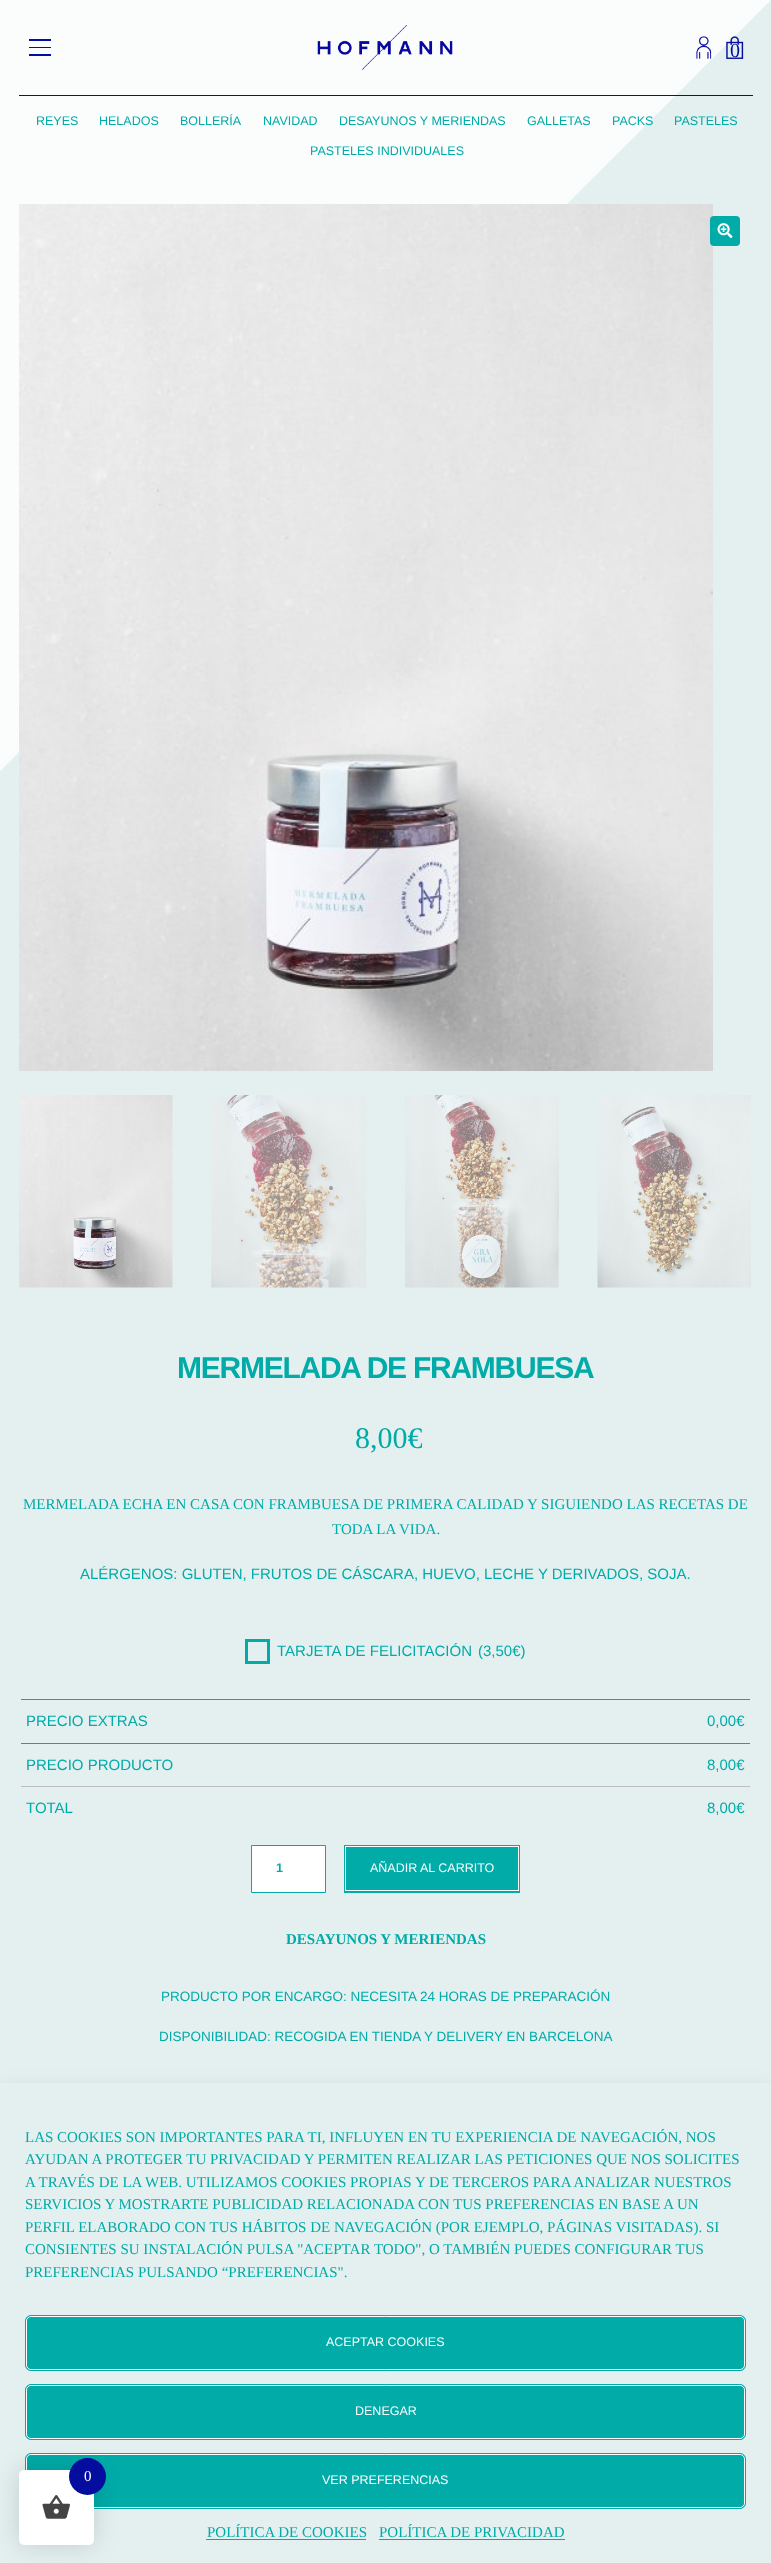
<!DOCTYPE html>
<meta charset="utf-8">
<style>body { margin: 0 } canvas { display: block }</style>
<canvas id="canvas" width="771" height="2563"></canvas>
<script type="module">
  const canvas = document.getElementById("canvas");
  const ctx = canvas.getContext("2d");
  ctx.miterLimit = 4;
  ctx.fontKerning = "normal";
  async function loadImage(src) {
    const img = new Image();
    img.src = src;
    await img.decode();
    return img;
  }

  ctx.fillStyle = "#e4f0f0";
  ctx.fillRect(0, 0, 771, 2563);
  ctx.drawImage(await loadImage("img1.png"), 0, 0, 771, 771);
  ctx.fillStyle = "#050d9e";
  ctx.fillRect(29, 39, 22, 2);
  ctx.fillRect(29, 47, 22, 1);
  ctx.fillRect(29, 54, 22, 2);
  ctx.drawImage(await loadImage("img2.png"), 317, 25, 136, 45);
  ctx.drawImage(await loadImage("img3.png"), 696, 36, 16, 23);
  ctx.drawImage(await loadImage("img4.png"), 726, 36, 18, 23);
  ctx.font = "20px Liberation Serif";
  ctx.fillText("0", 730, 57);
  ctx.fillRect(19, 95, 734, 1);
  ctx.font = "12.5px Liberation Sans";
  ctx.fillStyle = "#00aba8";
  ctx.fillText("REYES", 36, 125);
  ctx.fillText("HELADOS", 99, 125);
  ctx.fillText("BOLLERÍA", 180, 125);
  ctx.fillText("NAVIDAD", 263, 125);
  ctx.fillText("DESAYUNOS Y MERIENDAS", 339, 125);
  ctx.fillText("GALLETAS", 527, 125);
  ctx.fillText("PACKS", 612, 125);
  ctx.fillText("PASTELES", 674, 125);
  ctx.fillText("PASTELES INDIVIDUALES", 310, 155);
  ctx.drawImage(await loadImage("img5.png"), 19, 204, 694, 867);
  ctx.beginPath();
  ctx.roundRect(710, 216, 30, 30, 4);
  ctx.fill();
  ctx.drawImage(await loadImage("img6.png"), 717, 223, 16, 16);
  ctx.drawImage(await loadImage("img7.png"), 19, 1095, 154, 193);
  ctx.drawImage(await loadImage("img8.png"), 211, 1095, 155, 193);
  ctx.drawImage(await loadImage("img9.png"), 405, 1095, 154, 193);
  ctx.drawImage(await loadImage("img10.png"), 597, 1095, 154, 193);
  ctx.letterSpacing = "-1.25px";
  ctx.font = "bold 30px Liberation Sans";
  ctx.fillText("MERMELADA DE FRAMBUESA", 177, 1378);
  ctx.letterSpacing = "0px";
  ctx.font = "30px Liberation Serif";
  ctx.fillText("8,00€", 355, 1448);
  ctx.font = "15px Liberation Serif";
  ctx.fillText("MERMELADA ECHA EN CASA CON FRAMBUESA DE PRIMERA CALIDAD Y SIGUIENDO LAS RECETAS DE", 23, 1509);
  ctx.fillText("TODA LA VIDA.", 332, 1534);
  ctx.font = "15px Liberation Sans";
  ctx.fillText("ALÉRGENOS: GLUTEN, FRUTOS DE CÁSCARA, HUEVO, LECHE Y DERIVADOS, SOJA.", 80, 1579);
  ctx.strokeStyle = "#00aba8";
  ctx.lineWidth = 3;
  ctx.strokeRect(246.5, 1640.5, 22, 22);
  ctx.fillText("TARJETA DE FELICITACIÓN", 277, 1656);
  ctx.fillText("(3,50€)", 478, 1656);
  ctx.fillRect(21, 1699, 729, 1);
  ctx.fillText("PRECIO EXTRAS", 26, 1726);
  ctx.fillText("0,00€", 707, 1726);
  ctx.fillRect(21, 1743, 729, 1);
  ctx.fillText("PRECIO PRODUCTO", 26, 1770);
  ctx.fillText("8,00€", 707, 1770);
  ctx.fillStyle = "#bebebe";
  ctx.fillRect(21, 1786, 729, 1);
  ctx.fillStyle = "#00aba8";
  ctx.fillText("TOTAL", 26, 1813);
  ctx.fillText("8,00€", 707, 1813);
  ctx.fillStyle = "#ffffff";
  ctx.beginPath();
  ctx.rect(251.5, 1845.5, 74, 47);
  ctx.fill();
  ctx.lineWidth = 1;
  ctx.stroke();
  ctx.font = "bold 12.5px Liberation Sans";
  ctx.fillStyle = "#00aba8";
  ctx.fillText("1", 276, 1872);
  ctx.fillRect(344, 1845, 176, 48);
  ctx.strokeStyle = "#ffffff";
  ctx.strokeRect(345.5, 1846.5, 173, 44);
  ctx.font = "12.5px Liberation Sans";
  ctx.fillStyle = "#f9fdfd";
  ctx.fillText("AÑADIR AL CARRITO", 370, 1872);
  ctx.font = "bold 15px Liberation Serif";
  ctx.fillStyle = "#00aba8";
  ctx.fillText("DESAYUNOS Y MERIENDAS", 286, 1944);
  ctx.font = "13.5px Liberation Sans";
  ctx.fillText("PRODUCTO POR ENCARGO: NECESITA 24 HORAS DE PREPARACIÓN", 161, 2001);
  ctx.fillText("DISPONIBILIDAD: RECOGIDA EN TIENDA Y DELIVERY EN BARCELONA", 159, 2041);
  ctx.fillStyle = "rgba(0, 0, 0, 0.19)";
  ctx.filter = "blur(12.5px)";
  ctx.beginPath();
  ctx.rect(0, 2095, 771, 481);
  ctx.fill();
  ctx.filter = "none";
  ctx.fillStyle = "#e4f0f0";
  ctx.fillRect(0, 2083, 771, 480);
  ctx.font = "15px Liberation Serif";
  ctx.fillStyle = "#00aba8";
  ctx.fillText("LAS COOKIES SON IMPORTANTES PARA TI, INFLUYEN EN TU EXPERIENCIA DE NAVEGACIÓN, NOS", 25, 2142);
  ctx.fillText("AYUDAN A PROTEGER TU PRIVACIDAD Y PERMITEN REALIZAR LAS PETICIONES QUE NOS SOLICITES", 25, 2164);
  ctx.fillText("A TRAVÉS DE LA WEB. UTILIZAMOS COOKIES PROPIAS Y DE TERCEROS PARA ANALIZAR NUESTROS", 25, 2187);
  ctx.fillText("SERVICIOS Y MOSTRARTE PUBLICIDAD RELACIONADA CON TUS PREFERENCIAS EN BASE A UN", 25, 2209);
  ctx.fillText("PERFIL ELABORADO CON TUS HÁBITOS DE NAVEGACIÓN (POR EJEMPLO, PÁGINAS VISITADAS). SI", 25, 2232);
  ctx.fillText("CONSIENTES SU INSTALACIÓN PULSA \"ACEPTAR TODO\", O TAMBIÉN PUEDES CONFIGURAR TUS", 25, 2254);
  ctx.fillText("PREFERENCIAS PULSANDO “PREFERENCIAS\".", 25, 2277);
  ctx.beginPath();
  ctx.roundRect(25.5, 2315.5, 720, 55, 5.5);
  ctx.fill();
  ctx.strokeStyle = "#00aba8";
  ctx.stroke();
  ctx.beginPath();
  ctx.roundRect(26.5, 2316.5, 718, 53, 4.5);
  ctx.strokeStyle = "#ffffff";
  ctx.stroke();
  ctx.font = "12.5px Liberation Sans";
  ctx.fillStyle = "#f9fdfd";
  ctx.fillText("ACEPTAR COOKIES", 326, 2346);
  ctx.fillStyle = "#00aba8";
  ctx.beginPath();
  ctx.roundRect(25.5, 2384.5, 720, 55, 5.5);
  ctx.fill();
  ctx.strokeStyle = "#00aba8";
  ctx.stroke();
  ctx.beginPath();
  ctx.roundRect(26.5, 2385.5, 718, 53, 4.5);
  ctx.strokeStyle = "#ffffff";
  ctx.stroke();
  ctx.fillStyle = "#f9fdfd";
  ctx.fillText("DENEGAR", 355, 2415);
  ctx.fillStyle = "#00aba8";
  ctx.beginPath();
  ctx.roundRect(25.5, 2453.5, 720, 55, 5.5);
  ctx.fill();
  ctx.strokeStyle = "#00aba8";
  ctx.stroke();
  ctx.beginPath();
  ctx.roundRect(26.5, 2454.5, 718, 53, 4.5);
  ctx.strokeStyle = "#ffffff";
  ctx.stroke();
  ctx.fillStyle = "#f9fdfd";
  ctx.fillText("VER PREFERENCIAS", 322, 2484);
  ctx.font = "15px Liberation Serif";
  ctx.fillStyle = "#00aba8";
  ctx.fillText("POLÍTICA DE COOKIES", 207, 2537);
  ctx.fillRect(206, 2539, 160, 1);
  ctx.fillText("POLÍTICA DE PRIVACIDAD", 379, 2537);
  ctx.fillRect(379, 2539, 186, 1);
  ctx.fillStyle = "rgba(0, 0, 0, 0.15)";
  ctx.filter = "blur(12.5px)";
  ctx.beginPath();
  ctx.roundRect(19, 2470, 75, 75, 5);
  ctx.fill();
  ctx.filter = "none";
  ctx.fillStyle = "#ffffff";
  ctx.beginPath();
  ctx.roundRect(19, 2470, 75, 75, 5);
  ctx.fill();
  ctx.fillStyle = "#050d9e";
  ctx.beginPath();
  ctx.arc(87.5, 2476.5, 18.5, 0, Math.PI * 2);
  ctx.fill();
  ctx.fillStyle = "#ffffff";
  ctx.fillText("0", 84, 2481);
  ctx.drawImage(await loadImage("img11.png"), 42, 2495, 28, 24);
</script>
